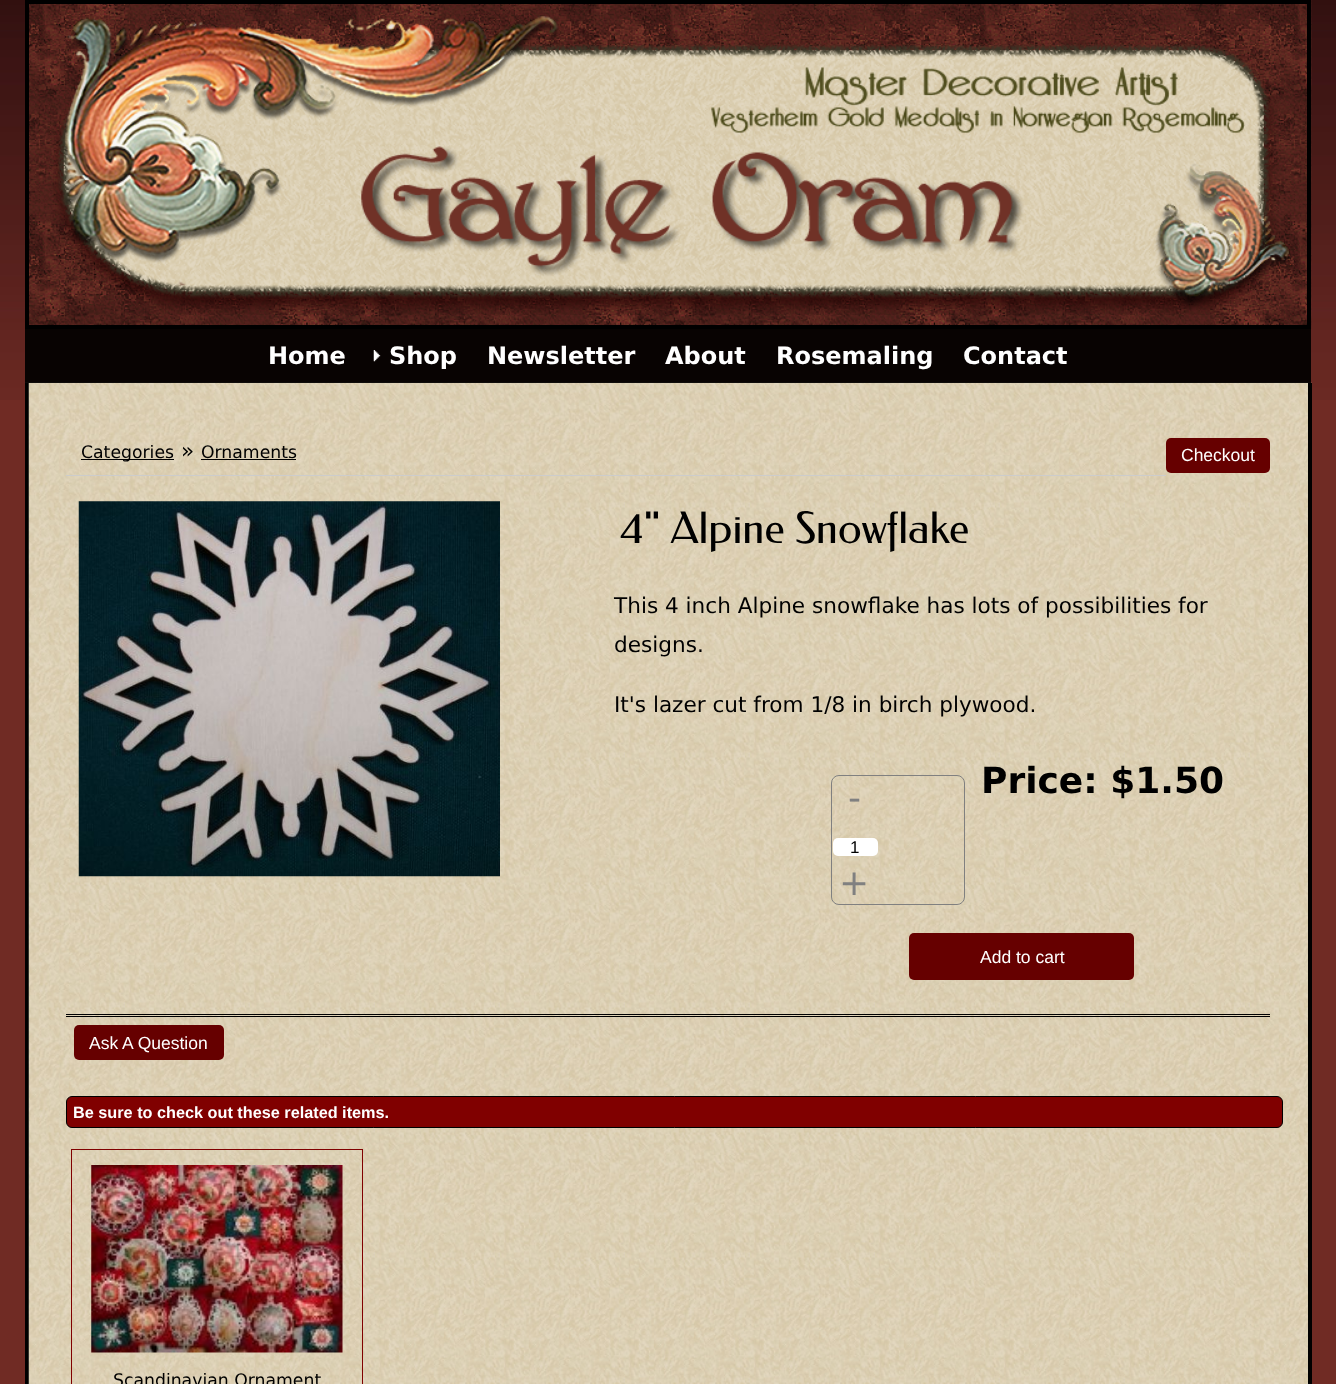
<!DOCTYPE html>
<meta charset="utf-8">
<style>body { margin: 0 } canvas { display: block }</style>
<canvas id="canvas" width="1336" height="1384"></canvas>
<script type="module">
  const canvas = document.getElementById("canvas");
  const ctx = canvas.getContext("2d");
  ctx.miterLimit = 4;
  ctx.fontKerning = "normal";
  async function loadImage(src) {
    const img = new Image();
    img.src = src;
    await img.decode();
    return img;
  }

  ctx.fillStyle = "#702b24";
  ctx.fillRect(0, 0, 1336, 1384);
  ctx.drawImage(await loadImage("img1.png"), 0, 0, 1336, 400);
  ctx.drawImage(await loadImage("img2.png"), 29, 0, 1283, 329);
  ctx.strokeStyle = "#000000";
  ctx.lineWidth = 4;
  ctx.strokeRect(27, 2, 1282, 325);
  ctx.drawImage(await loadImage("img3.png"), 53, 16, 1237, 299);
  ctx.drawImage(await loadImage("img5.png"), 25, 382, 1287, 1002);
  ctx.fillStyle = "#000000";
  ctx.fillRect(25, 383, 4, 1001);
  ctx.drawImage(await loadImage("img6.png"), 28, 382, 1280, 1002);
  ctx.fillStyle = "rgba(0, 0, 0, 0.92)";
  ctx.fillRect(25, 329, 1286, 54);
  ctx.font = "bold 24px DejaVu Sans";
  ctx.fillStyle = "#ffffff";
  ctx.fillText("Home", 268, 364);
  ctx.drawImage(await loadImage("img4.png"), 373, 350, 8, 12);
  ctx.fillText("Shop", 389, 364);
  ctx.fillText("Newsletter", 487, 364);
  ctx.fillText("About", 665, 364);
  ctx.fillText("Rosemaling", 776, 364);
  ctx.fillText("Contact", 963, 364);
  ctx.fillStyle = "#000000";
  ctx.fillRect(1308, 383, 4, 1001);
  ctx.fillStyle = "#cccccc";
  ctx.fillRect(66, 475, 1100, 1);
  ctx.fillStyle = "#000000";
  ctx.fillRect(81, 459, 93, 1);
  ctx.font = "17.25px DejaVu Sans";
  ctx.fillText("Categories", 81, 458);
  ctx.font = "21.6px DejaVu Sans";
  ctx.fillText("»", 181, 458);
  ctx.font = "17.25px DejaVu Sans";
  ctx.fillText("Ornaments", 201, 458);
  ctx.fillRect(201, 459, 95, 1);
  ctx.fillStyle = "#660000";
  ctx.beginPath();
  ctx.roundRect(1166, 438, 104, 35, 5);
  ctx.fill();
  ctx.font = "17.5px Liberation Sans";
  ctx.fillStyle = "#ffffff";
  ctx.fillText("Checkout", 1181, 461);
  ctx.drawImage(await loadImage("img7.png"), 78, 501, 422, 376);
  ctx.font = "43.25px Federo";
  ctx.fillStyle = "#000000";
  ctx.fillText("4\" Alpine Snowflake", 620, 543);
  ctx.font = "21.6px DejaVu Sans";
  ctx.fillText("This 4 inch Alpine snowflake has lots of possibilities for", 614, 613);
  ctx.fillText("designs.", 614, 652);
  ctx.fillText("It's lazer cut from 1/8 in birch plywood.", 614, 712);
  ctx.font = "bold 36px DejaVu Sans";
  ctx.fillText("Price: $1.50", 981, 793);
  ctx.beginPath();
  ctx.roundRect(831.5, 775.5, 133, 129, 7.5);
  ctx.strokeStyle = "#808080";
  ctx.lineWidth = 1;
  ctx.stroke();
  ctx.font = "36px DejaVu Sans";
  ctx.fillStyle = "#808080";
  ctx.fillText("-", 848, 810);
  ctx.fillStyle = "#ffffff";
  ctx.beginPath();
  ctx.roundRect(833, 838, 45, 18, 5);
  ctx.fill();
  ctx.font = "17px Liberation Sans";
  ctx.fillStyle = "#000000";
  ctx.fillText("1", 850, 853);
  ctx.font = "36px DejaVu Sans";
  ctx.fillStyle = "#808080";
  ctx.fillText("+", 839, 895);
  ctx.fillStyle = "#660000";
  ctx.beginPath();
  ctx.roundRect(909, 933, 225, 47, 5);
  ctx.fill();
  ctx.font = "17.5px Liberation Sans";
  ctx.fillStyle = "#ffffff";
  ctx.fillText("Add to cart", 980, 963);
  ctx.fillStyle = "#000000";
  ctx.fillRect(66, 1014, 1204, 1);
  ctx.fillRect(66, 1016, 1204, 1);
  ctx.fillStyle = "#660000";
  ctx.beginPath();
  ctx.roundRect(74, 1025, 150, 35, 5);
  ctx.fill();
  ctx.fillStyle = "#ffffff";
  ctx.fillText("Ask A Question", 89, 1049);
  ctx.fillStyle = "#800000";
  ctx.beginPath();
  ctx.roundRect(66.5, 1096.5, 1216, 31, 5.5);
  ctx.fill();
  ctx.strokeStyle = "#000000";
  ctx.stroke();
  ctx.font = "bold 16.25px Liberation Sans";
  ctx.fillStyle = "#ffffff";
  ctx.fillText("Be sure to check out these related items.", 73, 1118);
  ctx.strokeStyle = "#800000";
  ctx.strokeRect(71.5, 1149.5, 291, 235);
  ctx.drawImage(await loadImage("img8.png"), 91, 1165, 252, 188);
  ctx.font = "17.25px DejaVu Sans";
  ctx.fillStyle = "#000000";
  ctx.fillText("Scandinavian Ornament", 113, 1386);
</script>
